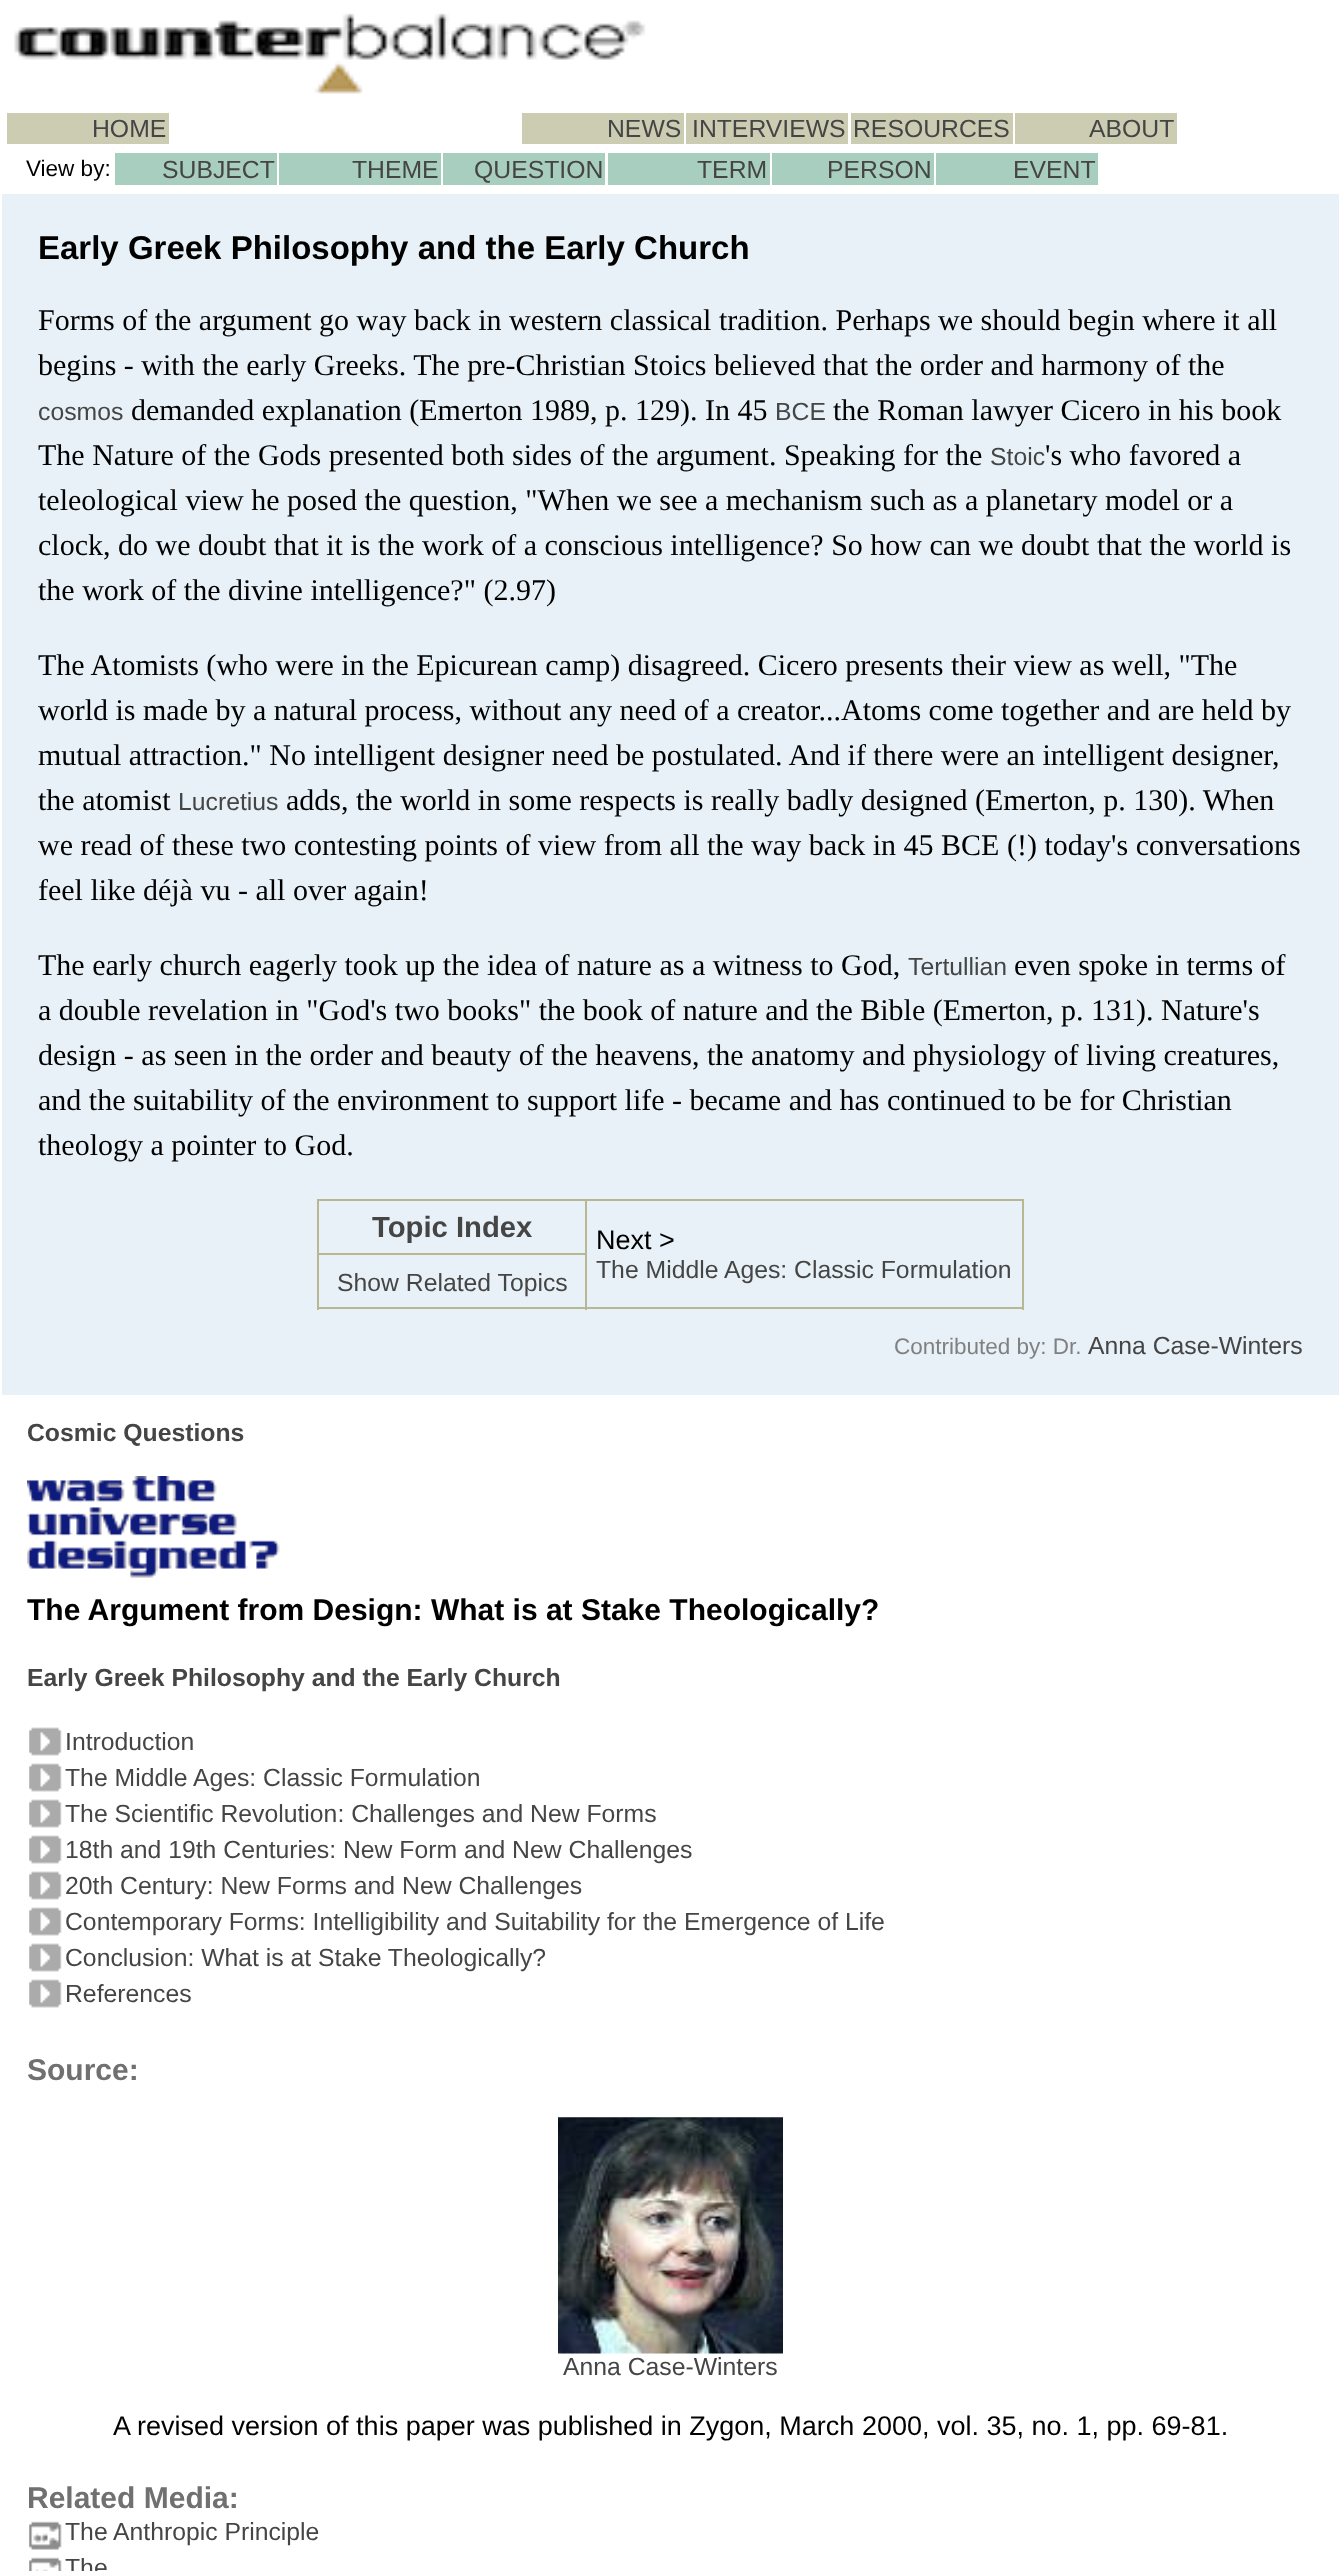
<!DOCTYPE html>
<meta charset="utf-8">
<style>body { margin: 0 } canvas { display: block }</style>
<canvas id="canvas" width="1339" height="2571"></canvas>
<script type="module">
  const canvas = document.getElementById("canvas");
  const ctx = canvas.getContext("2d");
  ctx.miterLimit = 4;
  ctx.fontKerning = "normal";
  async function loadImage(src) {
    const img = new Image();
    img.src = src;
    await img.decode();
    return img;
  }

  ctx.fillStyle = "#ffffff";
  ctx.fillRect(0, 0, 1339, 2571);
  ctx.drawImage(await loadImage("img1.png"), 14, 13, 632, 81);
  ctx.fillStyle = "#ccccb3";
  ctx.fillRect(7, 113, 162, 31);
  ctx.font = "24.75px Liberation Sans";
  ctx.fillStyle = "#454545";
  ctx.fillText("HOME", 92, 137);
  ctx.fillStyle = "#ccccb3";
  ctx.fillRect(522, 113, 162, 31);
  ctx.fillStyle = "#454545";
  ctx.fillText("NEWS", 607, 137);
  ctx.fillStyle = "#ccccb3";
  ctx.fillRect(686, 113, 162, 31);
  ctx.fillStyle = "#454545";
  ctx.fillText("INTERVIEWS", 692, 137);
  ctx.fillStyle = "#ccccb3";
  ctx.fillRect(851, 113, 162, 31);
  ctx.fillStyle = "#454545";
  ctx.fillText("RESOURCES", 853, 137);
  ctx.fillStyle = "#ccccb3";
  ctx.fillRect(1015, 113, 162, 31);
  ctx.fillStyle = "#454545";
  ctx.fillText("ABOUT", 1089, 137);
  ctx.font = "22.5px Liberation Sans";
  ctx.fillStyle = "#000000";
  ctx.fillText("View by:", 26, 176);
  ctx.fillStyle = "#a8cebf";
  ctx.fillRect(115, 153, 162, 32);
  ctx.font = "24.75px Liberation Sans";
  ctx.fillStyle = "#454545";
  ctx.fillText("SUBJECT", 162, 178);
  ctx.fillStyle = "#a8cebf";
  ctx.fillRect(279, 153, 162, 32);
  ctx.fillStyle = "#454545";
  ctx.fillText("THEME", 352, 178);
  ctx.fillStyle = "#a8cebf";
  ctx.fillRect(443, 153, 162, 32);
  ctx.fillStyle = "#454545";
  ctx.fillText("QUESTION", 474, 178);
  ctx.fillStyle = "#a8cebf";
  ctx.fillRect(608, 153, 162, 32);
  ctx.fillStyle = "#454545";
  ctx.fillText("TERM", 697, 178);
  ctx.fillStyle = "#a8cebf";
  ctx.fillRect(772, 153, 162, 32);
  ctx.fillStyle = "#454545";
  ctx.fillText("PERSON", 827, 178);
  ctx.fillStyle = "#a8cebf";
  ctx.fillRect(936, 153, 162, 32);
  ctx.fillStyle = "#454545";
  ctx.fillText("EVENT", 1013, 178);
  ctx.fillStyle = "#e7f1f7";
  ctx.fillRect(2, 194, 1337, 1201);
  ctx.font = "bold 33px Liberation Sans";
  ctx.fillStyle = "#000000";
  ctx.fillText("Early Greek Philosophy and the Early Church", 38, 259);
  ctx.font = "30px Liberation Serif";
  ctx.fillText("Forms of the argument go way back in western classical tradition. Perhaps we should begin where it all", 38, 330);
  ctx.fillText("begins - with the early Greeks. The pre-Christian Stoics believed that the order and harmony of the", 38, 375);
  ctx.font = "24.75px Liberation Sans";
  ctx.fillStyle = "#454545";
  ctx.fillText("cosmos", 38, 420);
  ctx.font = "30px Liberation Serif";
  ctx.fillStyle = "#000000";
  ctx.fillText("demanded explanation (Emerton 1989, p. 129). In 45", 131, 420);
  ctx.font = "24.75px Liberation Sans";
  ctx.fillStyle = "#454545";
  ctx.fillText("BCE", 775, 420);
  ctx.font = "30px Liberation Serif";
  ctx.fillStyle = "#000000";
  ctx.fillText("the Roman lawyer Cicero in his book", 833, 420);
  ctx.fillText("The Nature of the Gods presented both sides of the argument. Speaking for the", 38, 465);
  ctx.font = "24.75px Liberation Sans";
  ctx.fillStyle = "#454545";
  ctx.fillText("Stoic", 990, 465);
  ctx.font = "30px Liberation Serif";
  ctx.fillStyle = "#000000";
  ctx.fillText("'s who favored a", 1045, 465);
  ctx.fillText("teleological view he posed the question, \"When we see a mechanism such as a planetary model or a", 38, 510);
  ctx.fillText("clock, do we doubt that it is the work of a conscious intelligence? So how can we doubt that the world is", 38, 555);
  ctx.fillText("the work of the divine intelligence?\" (2.97)", 38, 600);
  ctx.fillText("The Atomists (who were in the Epicurean camp) disagreed. Cicero presents their view as well, \"The", 38, 675);
  ctx.fillText("world is made by a natural process, without any need of a creator...Atoms come together and are held by", 38, 720);
  ctx.fillText("mutual attraction.\" No intelligent designer need be postulated. And if there were an intelligent designer,", 38, 765);
  ctx.fillText("the atomist", 38, 810);
  ctx.font = "24.75px Liberation Sans";
  ctx.fillStyle = "#454545";
  ctx.fillText("Lucretius", 178, 810);
  ctx.font = "30px Liberation Serif";
  ctx.fillStyle = "#000000";
  ctx.fillText("adds, the world in some respects is really badly designed (Emerton, p. 130). When", 286, 810);
  ctx.fillText("we read of these two contesting points of view from all the way back in 45 BCE (!) today's conversations", 38, 855);
  ctx.fillText("feel like déjà vu - all over again!", 38, 900);
  ctx.fillText("The early church eagerly took up the idea of nature as a witness to God,", 38, 975);
  ctx.font = "24.75px Liberation Sans";
  ctx.fillStyle = "#454545";
  ctx.fillText("Tertullian", 908, 975);
  ctx.font = "30px Liberation Serif";
  ctx.fillStyle = "#000000";
  ctx.fillText("even spoke in terms of", 1014, 975);
  ctx.fillText("a double revelation in \"God's two books\" the book of nature and the Bible (Emerton, p. 131). Nature's", 38, 1020);
  ctx.fillText("design - as seen in the order and beauty of the heavens, the anatomy and physiology of living creatures,", 38, 1065);
  ctx.fillText("and the suitability of the environment to support life - became and has continued to be for Christian", 38, 1110);
  ctx.fillText("theology a pointer to God.", 38, 1155);
  ctx.fillStyle = "#b7b793";
  ctx.fillRect(317, 1199, 707, 2);
  ctx.fillRect(1022, 1199, 2, 111);
  ctx.fillRect(317, 1307, 707, 2);
  ctx.fillRect(317, 1199, 2, 111);
  ctx.font = "bold 29.25px Liberation Sans";
  ctx.fillStyle = "#454545";
  ctx.fillText("Topic Index", 372, 1237);
  ctx.fillStyle = "#b7b793";
  ctx.fillRect(317, 1253, 270, 2);
  ctx.fillRect(585, 1199, 2, 111);
  ctx.font = "27px Liberation Sans";
  ctx.fillStyle = "#000000";
  ctx.fillText("Next >", 596, 1249);
  ctx.font = "24.75px Liberation Sans";
  ctx.fillStyle = "#454545";
  ctx.fillText("The Middle Ages: Classic Formulation", 596, 1278);
  ctx.fillText("Show Related Topics", 337, 1291);
  ctx.font = "22.5px Liberation Sans";
  ctx.fillStyle = "#808080";
  ctx.fillText("Contributed by: Dr.", 894, 1354);
  ctx.font = "24.75px Liberation Sans";
  ctx.fillStyle = "#454545";
  ctx.fillText("Anna Case-Winters", 1088, 1354);
  ctx.font = "bold 24.75px Liberation Sans";
  ctx.fillText("Cosmic Questions", 27, 1441);
  ctx.drawImage(await loadImage("img2.png"), 27, 1476, 253, 102);
  ctx.font = "bold 30px Liberation Sans";
  ctx.fillStyle = "#000000";
  ctx.fillText("The Argument from Design: What is at Stake Theologically?", 27, 1620);
  ctx.font = "bold 24.75px Liberation Sans";
  ctx.fillStyle = "#454545";
  ctx.fillText("Early Greek Philosophy and the Early Church", 27, 1686);
  ctx.drawImage(await loadImage("img3.png"), 29, 1727, 33, 29);
  ctx.font = "24.75px Liberation Sans";
  ctx.fillText("Introduction", 65, 1750);
  ctx.drawImage(await loadImage("img3.png"), 29, 1763, 33, 29);
  ctx.fillText("The Middle Ages: Classic Formulation", 65, 1786);
  ctx.drawImage(await loadImage("img3.png"), 29, 1799, 33, 29);
  ctx.fillText("The Scientific Revolution: Challenges and New Forms", 65, 1822);
  ctx.drawImage(await loadImage("img3.png"), 29, 1835, 33, 29);
  ctx.fillText("18th and 19th Centuries: New Form and New Challenges", 65, 1858);
  ctx.drawImage(await loadImage("img3.png"), 29, 1871, 33, 29);
  ctx.fillText("20th Century: New Forms and New Challenges", 65, 1894);
  ctx.drawImage(await loadImage("img3.png"), 29, 1907, 33, 29);
  ctx.fillText("Contemporary Forms: Intelligibility and Suitability for the Emergence of Life", 65, 1930);
  ctx.drawImage(await loadImage("img3.png"), 29, 1943, 33, 29);
  ctx.fillText("Conclusion: What is at Stake Theologically?", 65, 1966);
  ctx.drawImage(await loadImage("img3.png"), 29, 1979, 33, 29);
  ctx.fillText("References", 65, 2002);
  ctx.font = "bold 30px Liberation Sans";
  ctx.fillStyle = "#707070";
  ctx.fillText("Source:", 27, 2080);
  ctx.drawImage(await loadImage("img4.png"), 558, 2117, 225, 237);
  ctx.font = "24.75px Liberation Sans";
  ctx.fillStyle = "#454545";
  ctx.fillText("Anna Case-Winters", 563, 2375);
  ctx.font = "27px Liberation Sans";
  ctx.fillStyle = "#000000";
  ctx.fillText("A revised version of this paper was published in Zygon, March 2000, vol. 35, no. 1, pp. 69-81.", 113, 2435);
  ctx.font = "bold 30px Liberation Sans";
  ctx.fillStyle = "#707070";
  ctx.fillText("Related Media:", 27, 2508);
  ctx.drawImage(await loadImage("img5.png"), 29, 2521, 33, 29);
  ctx.font = "24.75px Liberation Sans";
  ctx.fillStyle = "#454545";
  ctx.fillText("The", 65, 2540);
  ctx.fillText("Anthropic Principle", 113, 2540);
  ctx.drawImage(await loadImage("img6.png"), 29, 2557, 33, 14);
  ctx.fillText("The", 65, 2576);
</script>
